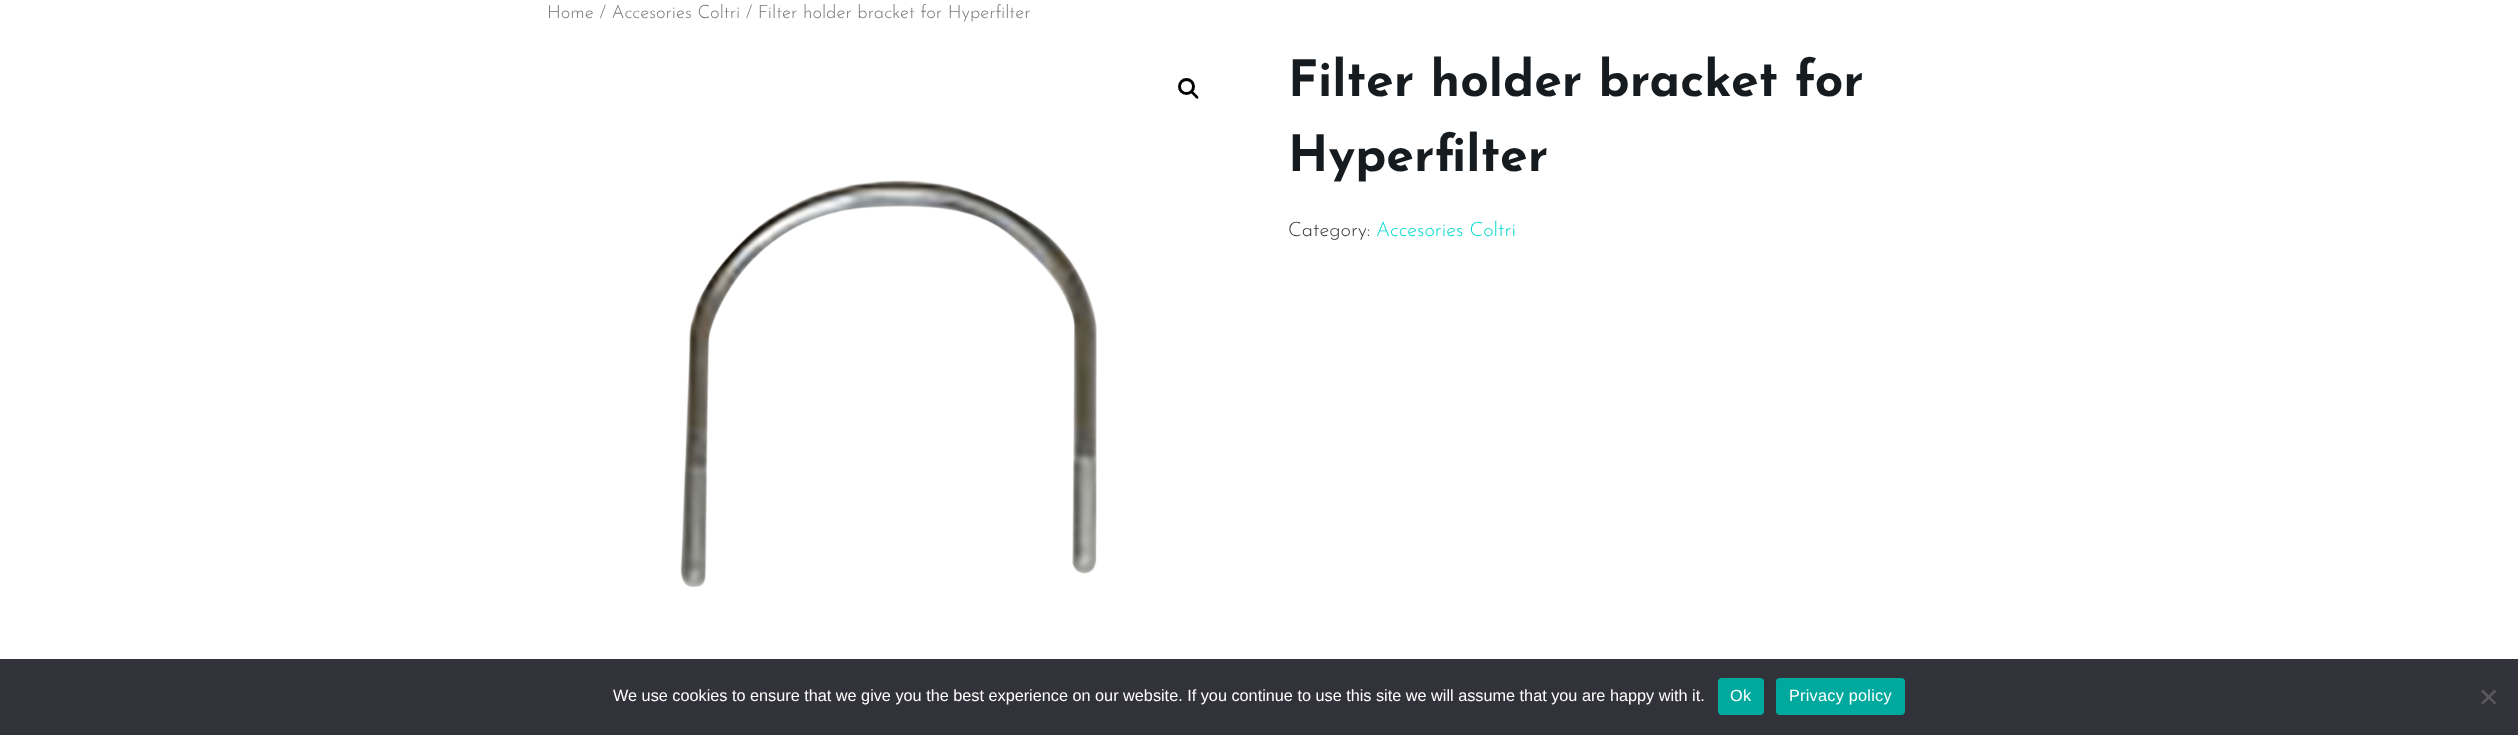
<!DOCTYPE html>
<meta charset="utf-8">
<style>body { margin: 0 } canvas { display: block }</style>
<canvas id="canvas" width="2518" height="735"></canvas>
<script type="module">
  const canvas = document.getElementById("canvas");
  const ctx = canvas.getContext("2d");
  ctx.miterLimit = 4;
  ctx.fontKerning = "normal";
  async function loadImage(src) {
    const img = new Image();
    img.src = src;
    await img.decode();
    return img;
  }

  ctx.fillStyle = "#ffffff";
  ctx.fillRect(0, 0, 2518, 735);
  ctx.font = "300 18.4px Josefin Sans";
  ctx.fillStyle = "#767676";
  ctx.fillText("Home / Accesories Coltri / Filter holder bracket for Hyperfilter", 547, 18);
  ctx.beginPath();
  ctx.arc(1186.5, 86.5, 7, 0, Math.PI * 2);
  ctx.strokeStyle = "#000000";
  ctx.lineWidth = 3;
  ctx.stroke();
  ctx.fillStyle = "#000000";
  ctx.beginPath();
  ctx.moveTo(1191, 91);
  ctx.bezierCurveTo(1192.5, 90, 1194.5, 93, 1195.5, 94);
  ctx.bezierCurveTo(1196.5, 94.5, 1199.5, 97, 1198, 98.5);
  ctx.bezierCurveTo(1196.5, 99.5, 1194.5, 96.5, 1193.5, 95.5);
  ctx.bezierCurveTo(1193, 95, 1189.5, 92.5, 1191, 91);
  ctx.closePath();
  ctx.fill();
  ctx.drawImage(await loadImage("img1.png"), 680, 180, 417, 408);
  ctx.font = "bold 50px Josefin Sans";
  ctx.fillStyle = "#151b1f";
  ctx.fillText("Filter holder bracket for", 1288, 96);
  ctx.fillText("Hyperfilter", 1288, 171);
  ctx.font = "300 20px Josefin Sans";
  ctx.fillStyle = "#333333";
  ctx.fillText("Category:", 1288, 236);
  ctx.fillStyle = "#00dacf";
  ctx.fillText("Accesories Coltri", 1376, 236);
  ctx.fillStyle = "#32323a";
  ctx.fillRect(0, 659, 2518, 76);
  ctx.font = "16.25px Liberation Sans";
  ctx.fillStyle = "#ffffff";
  ctx.fillText("We use cookies to ensure that we give you the best experience on our website. If you continue to use this site we will assume that you are happy with it.", 613, 701);
  ctx.fillStyle = "#00a99d";
  ctx.beginPath();
  ctx.roundRect(1718, 678, 46, 37, 4);
  ctx.fill();
  ctx.letterSpacing = "0.25px";
  ctx.fillStyle = "#ffffff";
  ctx.fillText("Ok", 1730, 701);
  ctx.fillStyle = "#00a99d";
  ctx.beginPath();
  ctx.roundRect(1776, 678, 129, 37, 4);
  ctx.fill();
  ctx.fillStyle = "#ffffff";
  ctx.fillText("Privacy policy", 1789, 701);
  ctx.fillStyle = "#59595d";
  ctx.beginPath();
  ctx.moveTo(2494.5, 689.5);
  ctx.lineTo(2496.5, 691.5);
  ctx.lineTo(2483, 704.5);
  ctx.lineTo(2481, 703);
  ctx.closePath();
  ctx.fill();
  ctx.beginPath();
  ctx.moveTo(2481, 691.5);
  ctx.lineTo(2483, 689.5);
  ctx.lineTo(2496.5, 703);
  ctx.lineTo(2494.5, 704.5);
  ctx.closePath();
  ctx.fill();
</script>
